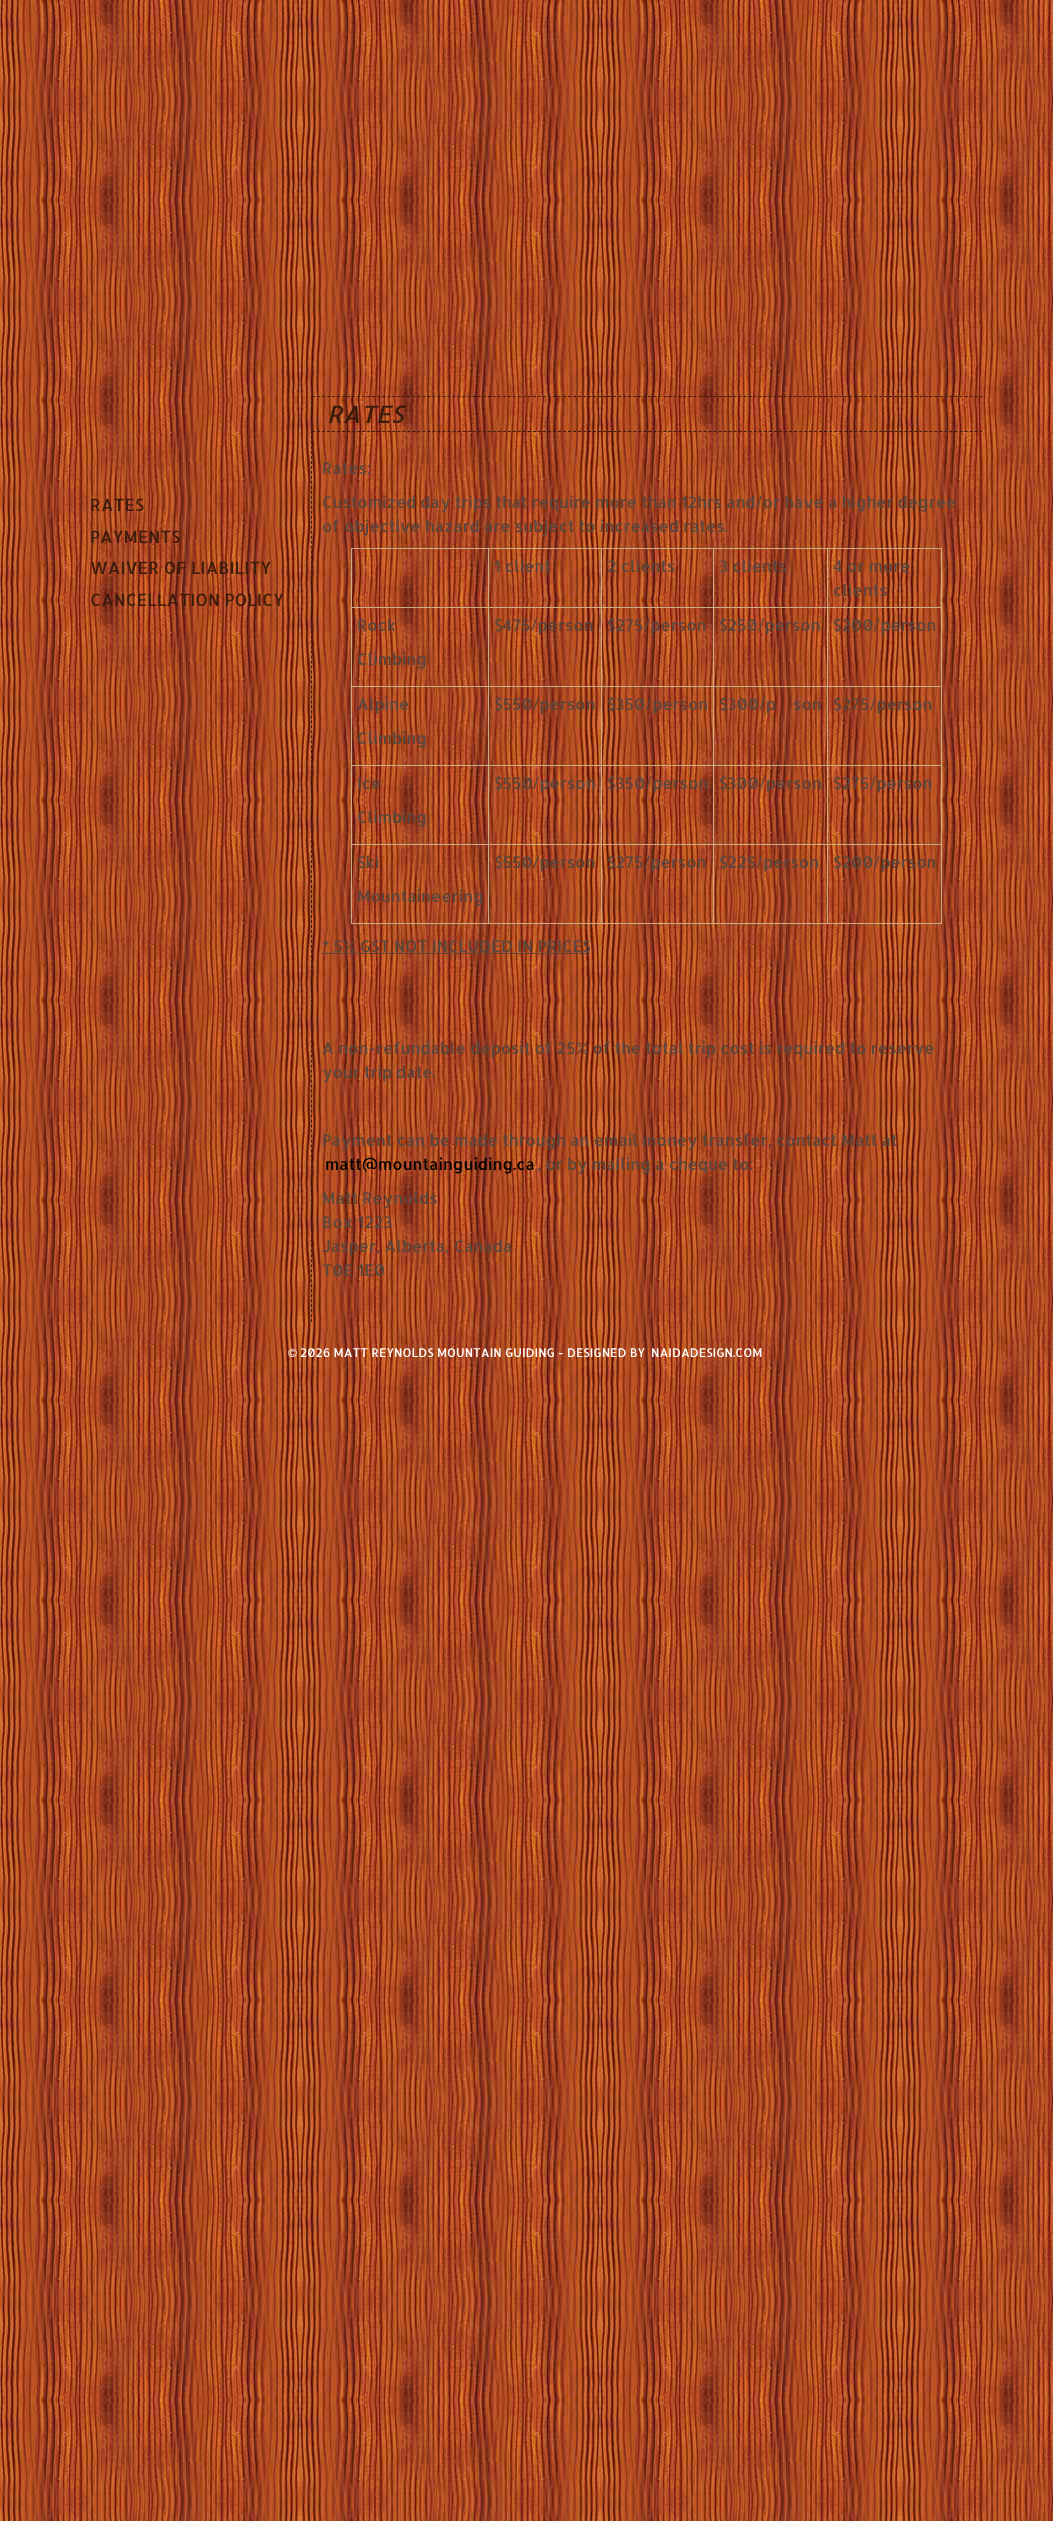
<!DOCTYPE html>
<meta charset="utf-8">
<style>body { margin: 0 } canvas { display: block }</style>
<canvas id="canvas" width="1053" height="2521"></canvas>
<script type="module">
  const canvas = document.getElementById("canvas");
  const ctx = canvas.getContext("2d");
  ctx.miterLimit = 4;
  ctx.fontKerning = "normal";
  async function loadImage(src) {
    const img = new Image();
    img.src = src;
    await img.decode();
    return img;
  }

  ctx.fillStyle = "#ffffff";
  ctx.fillRect(0, 0, 1053, 2521);
  ctx.drawImage(await loadImage("img1.png"), 0, 0, 1053, 2521);
  ctx.font = "17px Allerta";
  ctx.fillStyle = "#391c0c";
  ctx.fillText("RATES", 90, 511);
  ctx.fillText("PAYMENTS", 90, 543);
  ctx.fillText("WAIVER OF LIABILITY", 90, 574);
  ctx.fillText("CANCELLATION POLICY", 90, 606);
  ctx.beginPath();
  ctx.moveTo(311.5, 396);
  ctx.lineTo(311.5, 1322);
  ctx.strokeStyle = "#391c0c";
  ctx.setLineDash([3, 1.99]);
  ctx.stroke();
  ctx.beginPath();
  ctx.moveTo(312, 396.5);
  ctx.lineTo(982, 396.5);
  ctx.setLineDash([3, 2.02]);
  ctx.stroke();
  ctx.beginPath();
  ctx.moveTo(312, 431.5);
  ctx.lineTo(982, 431.5);
  ctx.stroke();
  ctx.font = "italic 24px Allerta";
  ctx.fillText("RATES", 327, 423);
  ctx.font = "16px Allerta";
  ctx.fillStyle = "#57473f";
  ctx.fillText("Rates:", 322, 474);
  ctx.fillText("Customized day trips that require more than 12hrs and/or have a higher degree", 322, 508);
  ctx.fillText("of objective hazard are subject to increased rates.", 322, 532);
  ctx.fillStyle = "#c8ad87";
  ctx.fillRect(827, 548, 115, 1);
  ctx.fillRect(827, 607, 115, 1);
  ctx.fillRect(827, 686, 115, 1);
  ctx.fillRect(827, 765, 115, 1);
  ctx.fillRect(827, 844, 115, 1);
  ctx.fillRect(941, 844, 1, 80);
  ctx.fillRect(827, 923, 115, 1);
  ctx.fillRect(827, 844, 1, 80);
  ctx.fillRect(713, 844, 115, 1);
  ctx.fillRect(827, 765, 1, 80);
  ctx.fillRect(713, 765, 115, 1);
  ctx.fillRect(827, 686, 1, 80);
  ctx.fillRect(713, 686, 115, 1);
  ctx.fillRect(827, 607, 1, 80);
  ctx.fillRect(713, 607, 115, 1);
  ctx.fillRect(827, 548, 1, 60);
  ctx.fillRect(713, 548, 115, 1);
  ctx.fillRect(713, 923, 115, 1);
  ctx.fillRect(713, 844, 1, 80);
  ctx.fillRect(601, 844, 113, 1);
  ctx.fillRect(713, 765, 1, 80);
  ctx.fillRect(601, 765, 113, 1);
  ctx.fillRect(713, 686, 1, 80);
  ctx.fillRect(601, 686, 113, 1);
  ctx.fillRect(713, 607, 1, 80);
  ctx.fillRect(601, 607, 113, 1);
  ctx.fillRect(713, 548, 1, 60);
  ctx.fillRect(601, 548, 113, 1);
  ctx.fillRect(601, 923, 113, 1);
  ctx.fillRect(601, 844, 1, 80);
  ctx.fillRect(488, 844, 114, 1);
  ctx.fillRect(601, 765, 1, 80);
  ctx.fillRect(488, 765, 114, 1);
  ctx.fillRect(601, 686, 1, 80);
  ctx.fillRect(488, 686, 114, 1);
  ctx.fillRect(601, 607, 1, 80);
  ctx.fillRect(488, 607, 114, 1);
  ctx.fillRect(601, 548, 1, 60);
  ctx.fillRect(488, 548, 114, 1);
  ctx.fillRect(488, 923, 114, 1);
  ctx.fillRect(488, 844, 1, 80);
  ctx.fillRect(351, 844, 138, 1);
  ctx.fillRect(488, 765, 1, 80);
  ctx.fillRect(351, 765, 138, 1);
  ctx.fillRect(488, 686, 1, 80);
  ctx.fillRect(351, 686, 138, 1);
  ctx.fillRect(488, 607, 1, 80);
  ctx.fillRect(351, 607, 138, 1);
  ctx.fillRect(488, 548, 1, 60);
  ctx.fillRect(351, 548, 138, 1);
  ctx.fillRect(351, 923, 138, 1);
  ctx.fillRect(351, 844, 1, 80);
  ctx.fillRect(351, 765, 1, 80);
  ctx.fillRect(351, 686, 1, 80);
  ctx.fillRect(351, 607, 1, 80);
  ctx.fillRect(351, 548, 1, 60);
  ctx.fillStyle = "#57473f";
  ctx.fillText("1 client", 494, 572);
  ctx.fillText("2 clients", 607, 572);
  ctx.fillText("3 clients", 719, 572);
  ctx.fillStyle = "#c8ad87";
  ctx.fillRect(941, 765, 1, 80);
  ctx.fillRect(941, 686, 1, 80);
  ctx.fillRect(941, 607, 1, 80);
  ctx.fillRect(941, 548, 1, 60);
  ctx.fillStyle = "#57473f";
  ctx.fillText("4 or more", 833, 572);
  ctx.fillText("clients", 833, 596);
  ctx.fillText("Rock", 357, 631);
  ctx.fillText("Climbing", 357, 665);
  ctx.fillText("$475/person", 494, 631);
  ctx.fillText("$275/person", 607, 631);
  ctx.fillText("$250/person", 719, 631);
  ctx.fillText("$200/person", 833, 631);
  ctx.fillText("Alpine", 357, 710);
  ctx.fillText("Climbing", 357, 744);
  ctx.fillText("$550/person", 494, 710);
  ctx.fillText("$350/person", 607, 710);
  ctx.fillText("$300/p", 719, 710);
  ctx.fillText("son", 793, 710);
  ctx.fillText("$275/person", 833, 710);
  ctx.fillText("Ice", 357, 789);
  ctx.fillText("Climbing", 357, 823);
  ctx.fillText("$550/person", 494, 789);
  ctx.fillText("$350/person", 607, 789);
  ctx.fillText("$300/person", 719, 789);
  ctx.fillText("$275/person", 833, 789);
  ctx.fillText("Ski", 357, 868);
  ctx.fillText("Mountaineering", 357, 902);
  ctx.fillText("$550/person", 494, 868);
  ctx.fillText("$275/person", 607, 868);
  ctx.fillText("$225/person", 719, 868);
  ctx.fillText("$200/person", 833, 868);
  ctx.fillText("* 5% GST NOT INCLUDED IN PRICES", 322, 952);
  ctx.fillRect(322, 953, 268, 1);
  ctx.fillText("A non-refundable deposit of 25% of the total trip cost is required to reserve", 322, 1054);
  ctx.fillText("your trip date.", 322, 1078);
  ctx.fillText("Payment can be made through an email money transfer, contact Matt at", 322, 1146);
  ctx.fillStyle = "#000000";
  ctx.fillText("matt@mountainguiding.ca", 325, 1170);
  ctx.fillStyle = "#57473f";
  ctx.fillText(", or by mailing a cheque to:", 537, 1170);
  ctx.fillText("Matt Reynolds", 322, 1204);
  ctx.fillText("Box 1223", 322, 1228);
  ctx.fillText("Jasper, Alberta, Canada", 322, 1252);
  ctx.fillText("T0E 1E0", 322, 1276);
  ctx.font = "12px Liberation Sans";
  ctx.fillStyle = "#ffffff";
  ctx.fillText("©", 288, 1357);
  ctx.font = "12px Allerta";
  ctx.fillText("2026 MATT REYNOLDS MOUNTAIN GUIDING - DESIGNED BY", 300, 1357);
  ctx.fillText("NAIDADESIGN.COM", 651, 1357);
</script>
